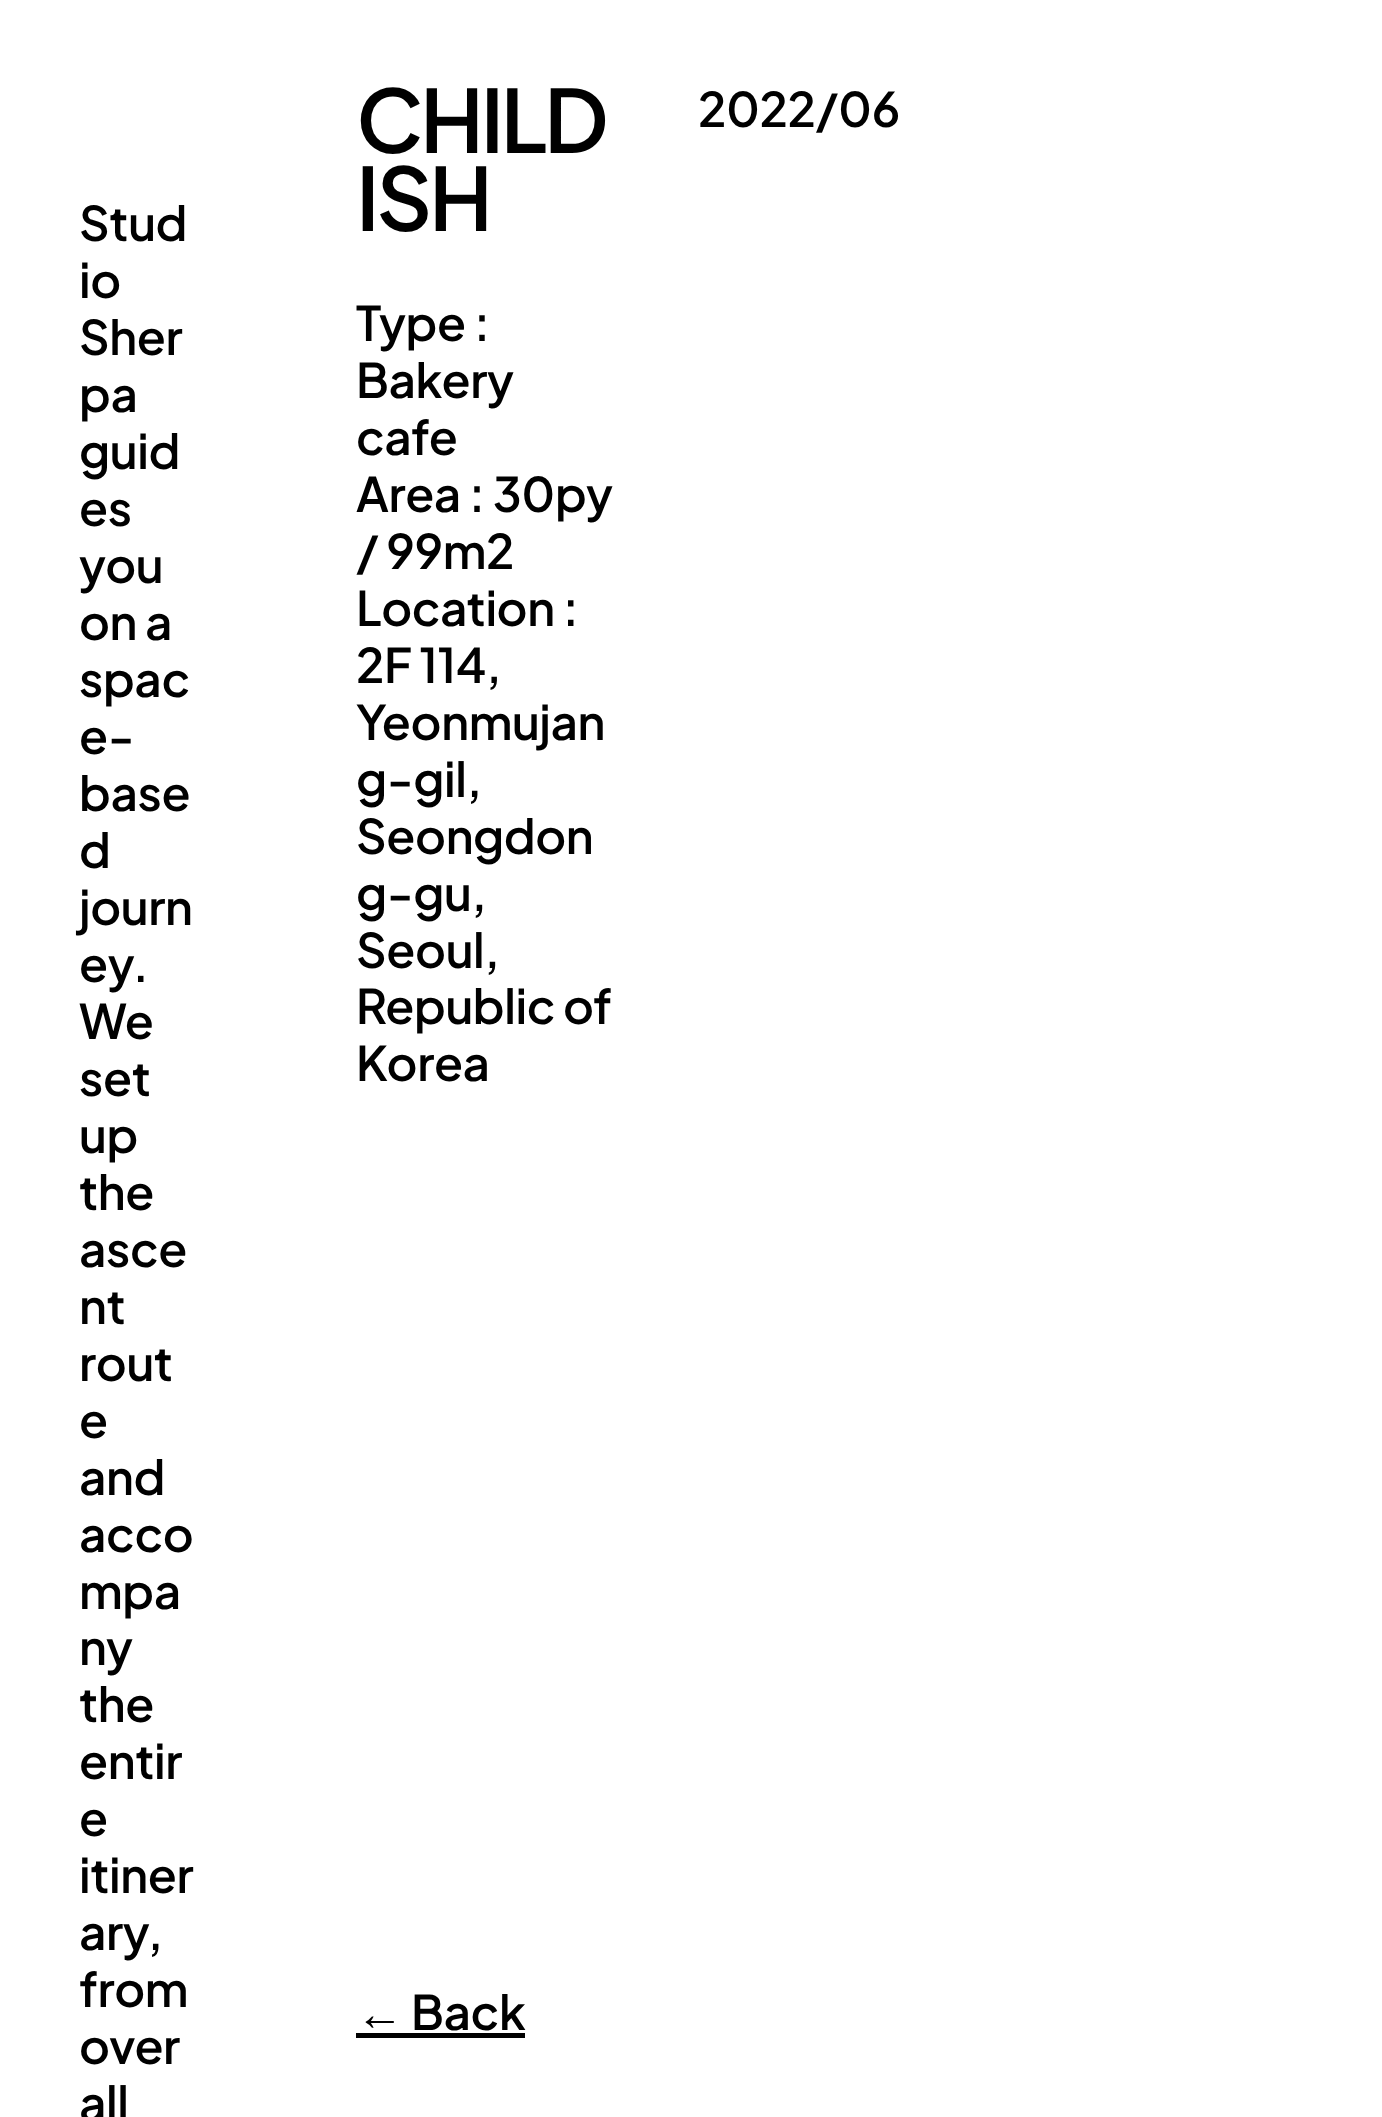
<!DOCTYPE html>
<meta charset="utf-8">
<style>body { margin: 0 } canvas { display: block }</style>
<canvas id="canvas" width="1382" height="2117"></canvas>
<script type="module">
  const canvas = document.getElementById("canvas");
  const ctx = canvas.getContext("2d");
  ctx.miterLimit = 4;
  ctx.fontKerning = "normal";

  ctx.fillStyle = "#ffffff";
  ctx.fillRect(0, 0, 1382, 2117);
  ctx.letterSpacing = "-0.4px";
  ctx.font = "600 47.5px Plus Jakarta Sans";
  ctx.fillStyle = "#000000";
  ctx.fillText("Stud", 79, 241);
  ctx.fillText("io", 79, 298);
  ctx.fillText("Sher", 79, 355);
  ctx.fillText("pa", 79, 412);
  ctx.fillText("guid", 79, 469);
  ctx.fillText("es", 79, 526);
  ctx.fillText("you", 79, 583);
  ctx.fillText("on a", 79, 640);
  ctx.fillText("spac", 79, 697);
  ctx.fillText("e-", 79, 754);
  ctx.fillText("base", 79, 811);
  ctx.fillText("d", 79, 868);
  ctx.fillText("journ", 79, 925);
  ctx.fillText("ey.", 79, 982);
  ctx.fillText("We", 79, 1039);
  ctx.fillText("set", 79, 1096);
  ctx.fillText("up", 79, 1153);
  ctx.fillText("the", 79, 1210);
  ctx.fillText("asce", 79, 1267);
  ctx.fillText("nt", 79, 1324);
  ctx.fillText("rout", 79, 1381);
  ctx.fillText("e", 79, 1438);
  ctx.fillText("and", 79, 1495);
  ctx.fillText("acco", 79, 1552);
  ctx.fillText("mpa", 79, 1609);
  ctx.fillText("ny", 79, 1665);
  ctx.fillText("the", 79, 1722);
  ctx.fillText("entir", 79, 1779);
  ctx.fillText("e", 79, 1836);
  ctx.fillText("itiner", 79, 1893);
  ctx.fillText("ary,", 79, 1950);
  ctx.fillText("from", 79, 2007);
  ctx.fillText("over", 79, 2064);
  ctx.fillText("all", 79, 2121);
  ctx.letterSpacing = "-3.5px";
  ctx.font = "600 87px Plus Jakarta Sans";
  ctx.fillText("CHILD", 356, 153);
  ctx.fillText("ISH", 356, 231);
  ctx.letterSpacing = "-0.4px";
  ctx.font = "600 47.5px Plus Jakarta Sans";
  ctx.fillText("Type :", 356, 341);
  ctx.fillText("Bakery", 356, 398);
  ctx.fillText("cafe", 356, 455);
  ctx.fillText("Area : 30py", 356, 512);
  ctx.fillText("/ 99m2", 356, 569);
  ctx.fillText("Location :", 356, 626);
  ctx.fillText("2F 114,", 356, 683);
  ctx.fillText("Yeonmujan", 356, 740);
  ctx.fillText("g-gil,", 356, 797);
  ctx.fillText("Seongdon", 356, 854);
  ctx.fillText("g-gu,", 356, 911);
  ctx.fillText("Seoul,", 356, 968);
  ctx.fillText("Republic of", 356, 1024);
  ctx.fillText("Korea", 356, 1081);
  ctx.fillText("2022/06", 698, 127);
  ctx.font = "bold 47.5px Liberation Sans";
  ctx.fillText("←", 356, 2030);
  ctx.fillRect(356, 2033, 169, 5);
  ctx.font = "600 47.5px Plus Jakarta Sans";
  ctx.fillText("Back", 411, 2030);
</script>
